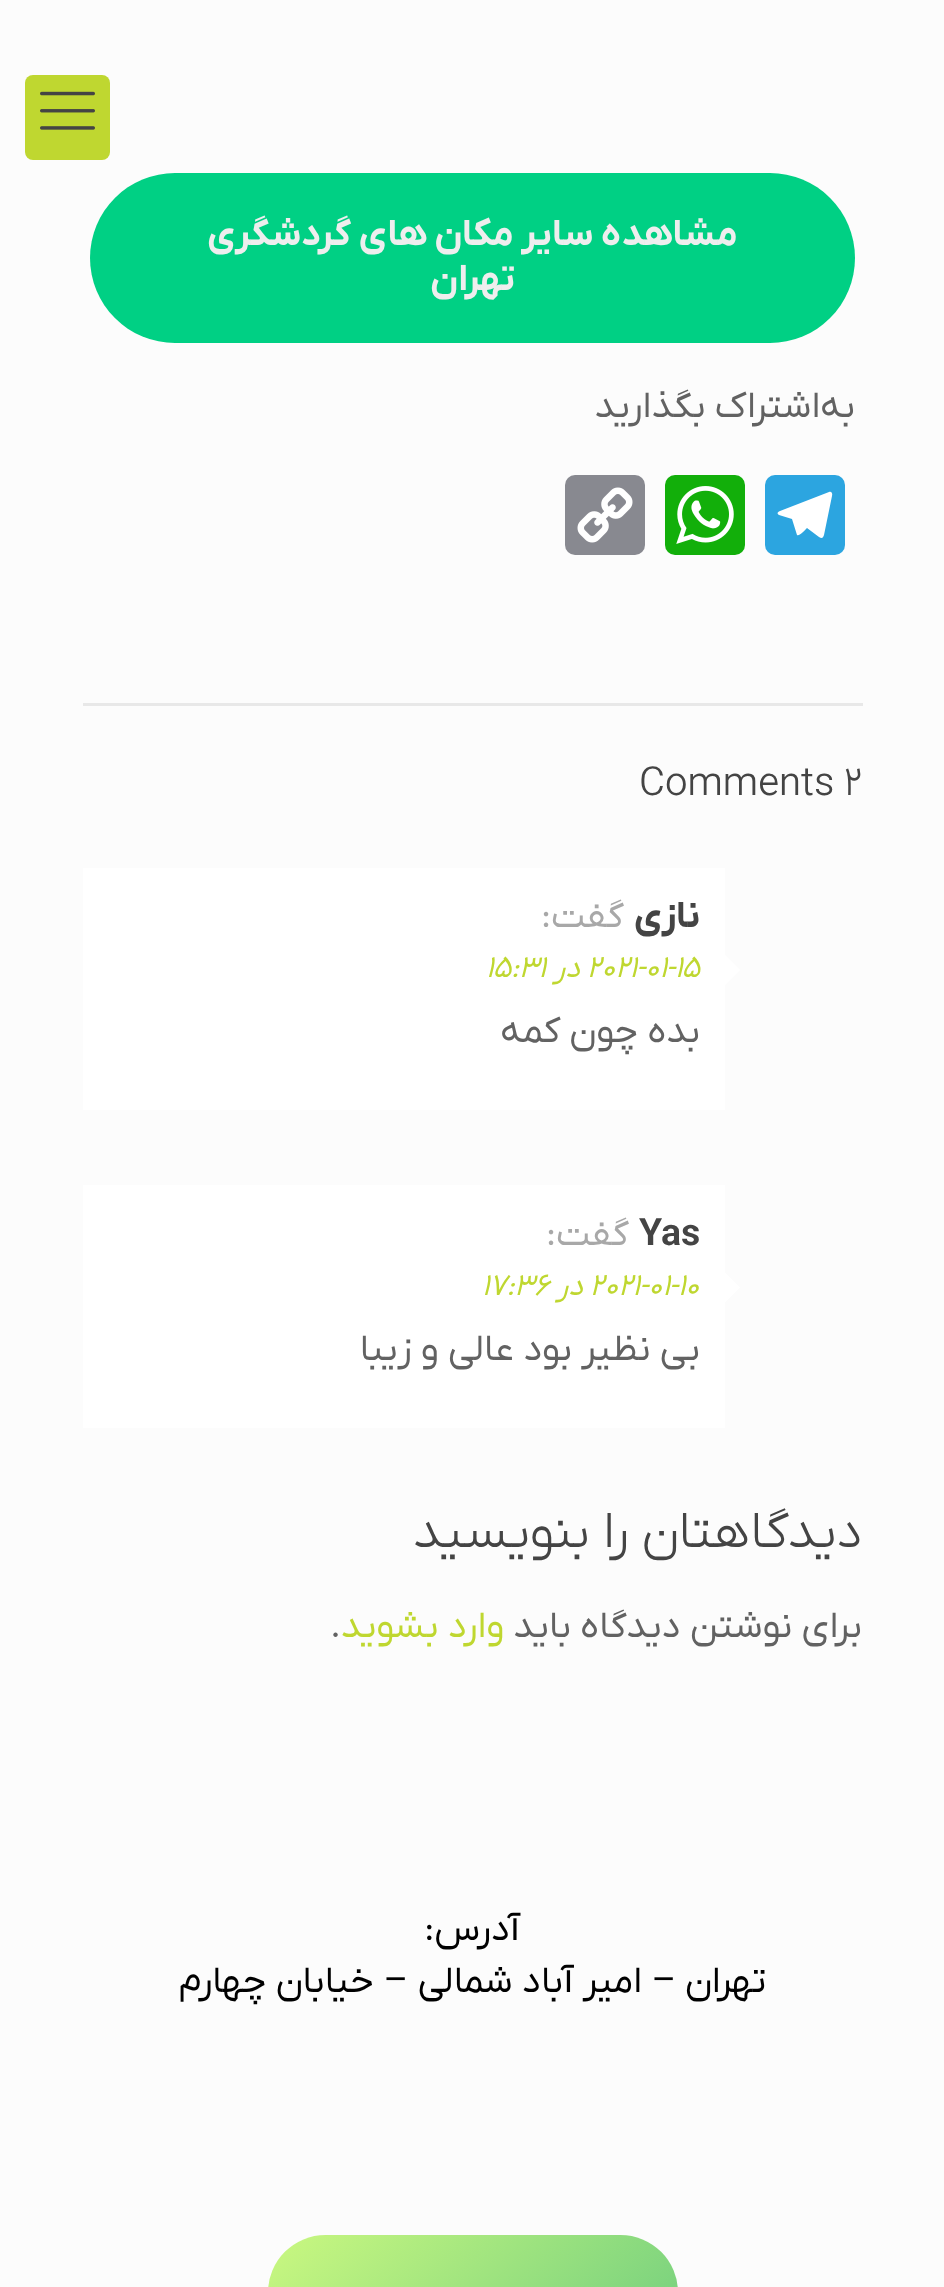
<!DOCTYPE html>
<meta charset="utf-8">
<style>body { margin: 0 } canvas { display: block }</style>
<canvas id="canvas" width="944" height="2287"></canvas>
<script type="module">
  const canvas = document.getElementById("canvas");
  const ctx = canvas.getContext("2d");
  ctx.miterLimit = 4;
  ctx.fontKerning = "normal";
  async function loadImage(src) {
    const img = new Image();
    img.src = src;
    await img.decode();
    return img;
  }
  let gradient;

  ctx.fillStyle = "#fcfcfc";
  ctx.fillRect(0, 0, 944, 2287);
  ctx.fillStyle = "#bfd730";
  ctx.beginPath();
  ctx.roundRect(25, 75, 85, 85, 8);
  ctx.fill();
  ctx.drawImage(await loadImage("img1.png"), 40, 91, 55, 39);
  ctx.fillStyle = "#00d084";
  ctx.beginPath();
  ctx.roundRect(90, 173, 765, 170, 85);
  ctx.fill();
  ctx.direction = "rtl";
  ctx.font = "bold 37.5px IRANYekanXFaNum";
  ctx.fillStyle = "#eeeeee";
  ctx.fillText("مشاهده سایر مکان های گردشگری", 738, 245);
  ctx.fillText("تهران", 515, 290);
  ctx.font = "37.5px IRANYekanXFaNum";
  ctx.fillStyle = "#626262";
  ctx.fillText("به‌اشتراک بگذارید", 855, 417);
  ctx.fillStyle = "#2ca5e0";
  ctx.beginPath();
  ctx.roundRect(765, 475, 80, 80, 10);
  ctx.fill();
  ctx.fillStyle = "#ffffff";
  ctx.beginPath();
  ctx.moveTo(829, 492);
  ctx.lineTo(780, 511);
  ctx.bezierCurveTo(777, 512, 777, 514, 779, 515);
  ctx.lineTo(792, 519);
  ctx.lineTo(797, 535);
  ctx.bezierCurveTo(799, 537, 806, 529, 807, 528);
  ctx.lineTo(819, 537);
  ctx.bezierCurveTo(822, 539, 823, 538, 824, 535);
  ctx.lineTo(832, 496);
  ctx.bezierCurveTo(833, 493, 831, 491, 829, 492);
  ctx.closePath();
  ctx.fill();
  ctx.fillStyle = "#12af0a";
  ctx.beginPath();
  ctx.roundRect(665, 475, 80, 80, 10);
  ctx.fill();
  ctx.drawImage(await loadImage("img2.png"), 676, 486, 58, 58);
  ctx.fillStyle = "#888990";
  ctx.beginPath();
  ctx.roundRect(565, 475, 80, 80, 10);
  ctx.fill();
  ctx.drawImage(await loadImage("img3.png"), 577, 487, 56, 56);
  ctx.fillStyle = "#e8e8e8";
  ctx.fillRect(83, 703, 780, 3);
  ctx.direction = "ltr";
  ctx.font = "300 40px IRANYekanXFaNum";
  ctx.fillStyle = "#444444";
  ctx.fillText("Comments 2", 639, 795);
  ctx.fillStyle = "#ffffff";
  ctx.fillRect(83, 868, 642, 242);
  ctx.direction = "rtl";
  ctx.font = "bold 37.5px IRANYekanXFaNum";
  ctx.fillStyle = "#444444";
  ctx.fillText("نازی", 700, 927);
  ctx.font = "37.5px IRANYekanXFaNum";
  ctx.fillStyle = "#a8a8a8";
  ctx.fillText("گفت:", 624, 927);
  ctx.fillStyle = "#ffffff";
  ctx.beginPath();
  ctx.moveTo(725, 985);
  ctx.lineTo(725, 955);
  ctx.lineTo(740, 970);
  ctx.closePath();
  ctx.fill();
  ctx.direction = "ltr";
  ctx.font = "italic 30px IRANYekanXFaNum";
  ctx.fillStyle = "#bfd730";
  ctx.fillText("2021-01-15", 587, 977);
  ctx.direction = "rtl";
  ctx.fillText("در", 580, 977);
  ctx.direction = "ltr";
  ctx.fillText("15:31", 486, 977);
  ctx.direction = "rtl";
  ctx.font = "37.5px IRANYekanXFaNum";
  ctx.fillStyle = "#626262";
  ctx.fillText("بده چون کمه", 700, 1042);
  ctx.fillStyle = "#ffffff";
  ctx.fillRect(83, 1185, 642, 243);
  ctx.direction = "ltr";
  ctx.font = "bold 37.5px IRANYekanXFaNum";
  ctx.fillStyle = "#444444";
  ctx.fillText("Yas", 639, 1245);
  ctx.direction = "rtl";
  ctx.font = "37.5px IRANYekanXFaNum";
  ctx.fillStyle = "#a8a8a8";
  ctx.fillText("گفت:", 629, 1245);
  ctx.fillStyle = "#ffffff";
  ctx.beginPath();
  ctx.moveTo(725, 1302.5);
  ctx.lineTo(725, 1272.5);
  ctx.lineTo(740, 1287.5);
  ctx.closePath();
  ctx.fill();
  ctx.direction = "ltr";
  ctx.font = "italic 30px IRANYekanXFaNum";
  ctx.fillStyle = "#bfd730";
  ctx.fillText("2021-01-10", 590, 1295);
  ctx.direction = "rtl";
  ctx.fillText("در", 583, 1295);
  ctx.direction = "ltr";
  ctx.fillText("17:36", 482, 1295);
  ctx.direction = "rtl";
  ctx.font = "37.5px IRANYekanXFaNum";
  ctx.fillStyle = "#626262";
  ctx.fillText("بی نظیر بود عالی و زیبا", 700, 1360);
  ctx.font = "300 52.5px IRANYekanXFaNum";
  ctx.fillStyle = "#444444";
  ctx.fillText("دیدگاهتان را بنویسید", 862, 1547);
  ctx.font = "37.5px IRANYekanXFaNum";
  ctx.fillStyle = "#626262";
  ctx.fillText("برای نوشتن دیدگاه باید", 862, 1637);
  ctx.fillStyle = "#bfd730";
  ctx.fillText("وارد بشوید", 504, 1637);
  ctx.direction = "ltr";
  ctx.fillStyle = "#626262";
  ctx.fillText(".", 330, 1637);
  ctx.direction = "rtl";
  ctx.fillStyle = "#000000";
  ctx.fillText("آدرس:", 520, 1940);
  ctx.fillText("تهران", 766, 1992);
  ctx.font = "37.5px Roboto";
  ctx.fillText("–", 676, 1992);
  ctx.font = "37.5px IRANYekanXFaNum";
  ctx.fillText("امیر آباد شمالی", 642, 1992);
  ctx.font = "37.5px Roboto";
  ctx.fillText("–", 408, 1992);
  ctx.font = "37.5px IRANYekanXFaNum";
  ctx.fillText("خیابان چهارم", 374, 1992);
  gradient = ctx.createLinearGradient(339, 2164, 606, 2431);
  gradient.addColorStop(0, "#caf880");
  gradient.addColorStop(1, "#71ce7e");
  ctx.fillStyle = gradient;
  ctx.beginPath();
  ctx.roundRect(268, 2235, 410, 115, 62.5);
  ctx.fill();
</script>
